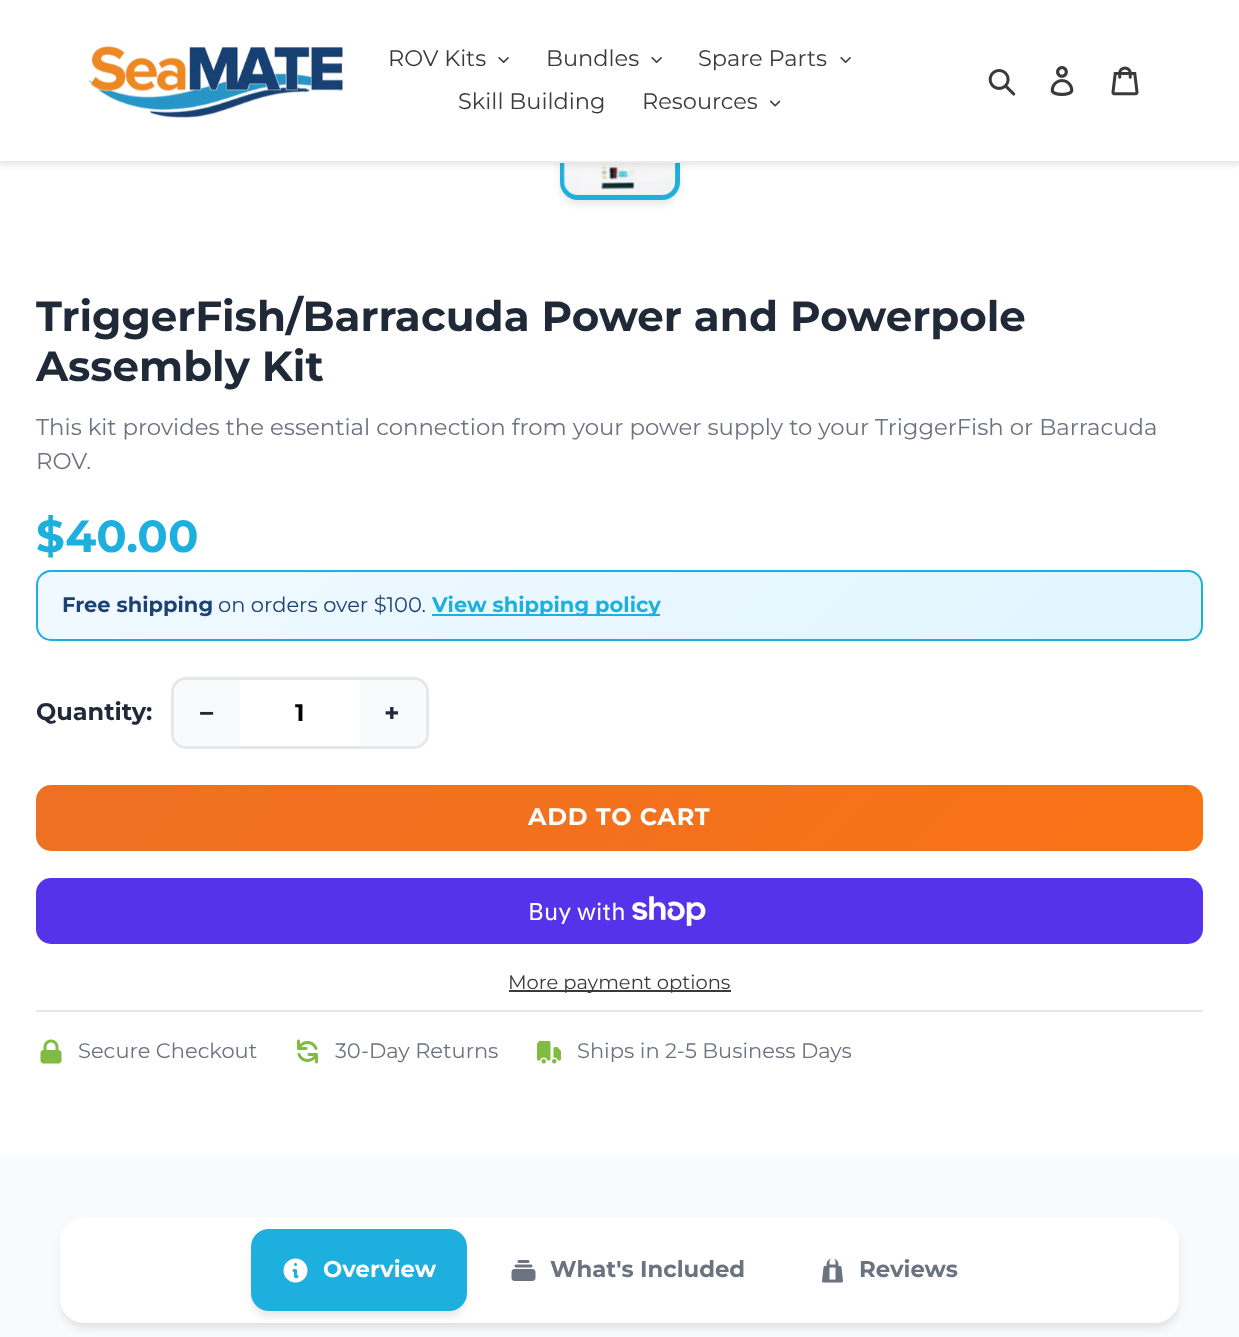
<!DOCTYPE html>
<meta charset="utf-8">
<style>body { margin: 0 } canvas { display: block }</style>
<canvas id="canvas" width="1239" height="1337"></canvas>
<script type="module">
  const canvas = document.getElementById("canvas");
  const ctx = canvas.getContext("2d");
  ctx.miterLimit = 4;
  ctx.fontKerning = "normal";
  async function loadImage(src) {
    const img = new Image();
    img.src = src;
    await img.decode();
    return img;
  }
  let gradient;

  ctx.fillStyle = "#f9fafb";
  ctx.fillRect(0, 0, 1239, 1337);
  ctx.fillStyle = "#ffffff";
  ctx.fillRect(0, 163, 1239, 994);
  ctx.fillStyle = "rgba(0, 0, 0, 0.1)";
  ctx.filter = "blur(4.5px)";
  ctx.beginPath();
  ctx.roundRect(561, 87, 117, 117, 17);
  ctx.fill();
  ctx.filter = "none";
  ctx.beginPath();
  ctx.roundRect(562.5, 82.5, 115, 115, 15.5);
  ctx.strokeStyle = "#1dafde";
  ctx.lineWidth = 5;
  ctx.stroke();
  ctx.drawImage(await loadImage("img7.png"), 563, 163, 113, 32);
  ctx.filter = "blur(3px)";
  ctx.beginPath();
  ctx.rect(0, 3, 1239, 162);
  ctx.fill();
  ctx.filter = "none";
  ctx.fillStyle = "#ffffff";
  ctx.fillRect(0, 0, 1239, 161);
  ctx.fillStyle = "#ebebeb";
  ctx.fillRect(0, 161, 1239, 2);
  ctx.drawImage(await loadImage("img1.png"), 88, 46, 255, 72);
  ctx.font = "22.5px Montserrat";
  ctx.fillStyle = "#3a3a3a";
  ctx.fillText("ROV Kits", 388, 66);
  ctx.drawImage(await loadImage("img2.png"), 498, 57, 11, 6);
  ctx.fillText("Bundles", 546, 66);
  ctx.drawImage(await loadImage("img2.png"), 651, 57, 11, 6);
  ctx.fillText("Spare Parts", 698, 66);
  ctx.drawImage(await loadImage("img2.png"), 840, 57, 11, 6);
  ctx.fillText("Skill Building", 458, 109);
  ctx.fillText("Resources", 642, 109);
  ctx.drawImage(await loadImage("img3.png"), 770, 100, 10, 7);
  ctx.drawImage(await loadImage("img4.png"), 988, 69, 28, 27);
  ctx.drawImage(await loadImage("img5.png"), 1050, 66, 24, 30);
  ctx.drawImage(await loadImage("img6.png"), 1111, 66, 28, 30);
  ctx.font = "bold 42px Montserrat";
  ctx.fillStyle = "#1f2937";
  ctx.fillText("TriggerFish/Barracuda Power and Powerpole", 36, 331);
  ctx.fillText("Assembly Kit", 36, 381);
  ctx.font = "22.8px Montserrat";
  ctx.fillStyle = "#6b7280";
  ctx.fillText("This kit provides the essential connection from your power supply to your TriggerFish or Barracuda", 36, 435);
  ctx.fillText("ROV.", 36, 469);
  ctx.font = "bold 45px Montserrat";
  ctx.fillStyle = "#1dafde";
  ctx.fillText("$40.00", 36, 552);
  ctx.save();
  ctx.beginPath();
  ctx.roundRect(36, 570, 1167, 71, 15);
  ctx.clip();
  gradient = ctx.createLinearGradient(312, 297, 927, 913);
  gradient.addColorStop(0, "#f0f9ff");
  gradient.addColorStop(1, "#e1f5fe");
  ctx.fillStyle = gradient;
  ctx.fillRect(38, 572, 1164, 67);
  ctx.restore();
  ctx.beginPath();
  ctx.roundRect(37, 571, 1165, 69, 14);
  ctx.lineWidth = 2;
  ctx.stroke();
  ctx.font = "bold 21px Montserrat";
  ctx.fillStyle = "#1b4175";
  ctx.fillText("Free shipping", 62, 612);
  ctx.font = "21px Montserrat";
  ctx.fillText("on orders over $100.", 218, 612);
  ctx.fillStyle = "#1dafde";
  ctx.fillRect(432, 614, 228, 2);
  ctx.font = "bold 21px Montserrat";
  ctx.fillText("View shipping policy", 432, 612);
  ctx.font = "bold 24px Montserrat";
  ctx.fillStyle = "#1f2937";
  ctx.fillText("Quantity:", 36, 720);
  ctx.beginPath();
  ctx.roundRect(172.5, 678.5, 255, 69, 13.5);
  ctx.strokeStyle = "#e5e7eb";
  ctx.lineWidth = 3;
  ctx.stroke();
  ctx.fillStyle = "#f9fafb";
  ctx.beginPath();
  ctx.roundRect(174, 680, 66, 66, [12, 0, 0, 12]);
  ctx.fill();
  ctx.font = "bold 26px Liberation Sans";
  ctx.fillStyle = "#1f2937";
  ctx.fillText("−", 199, 722);
  ctx.font = "bold 24px Montserrat";
  ctx.fillStyle = "#000000";
  ctx.fillText("1", 295, 721);
  ctx.fillStyle = "#f9fafb";
  ctx.beginPath();
  ctx.roundRect(360, 680, 66, 66, [0, 12, 12, 0]);
  ctx.fill();
  ctx.font = "bold 26px Montserrat";
  ctx.fillStyle = "#1f2937";
  ctx.fillText("+", 384, 722);
  gradient = ctx.createLinearGradient(311, 509, 928, 1126);
  gradient.addColorStop(0, "#ee7024");
  gradient.addColorStop(1, "#f97316");
  ctx.fillStyle = gradient;
  ctx.beginPath();
  ctx.roundRect(36, 785, 1167, 66, 15);
  ctx.fill();
  ctx.letterSpacing = "0.75px";
  ctx.font = "bold 24px Montserrat";
  ctx.fillStyle = "#ffffff";
  ctx.fillText("ADD TO CART", 528, 825);
  ctx.fillStyle = "#5433eb";
  ctx.beginPath();
  ctx.roundRect(36, 878, 1167, 66, 15);
  ctx.fill();
  ctx.letterSpacing = "0px";
  ctx.font = "24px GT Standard";
  ctx.fillStyle = "#ffffff";
  ctx.fillText("Buy with", 528, 920);
  ctx.drawImage(await loadImage("img8.png"), 632, 896, 74, 30);
  ctx.fillStyle = "#3a3a3a";
  ctx.fillRect(509, 990, 222, 2);
  ctx.font = "19.5px Montserrat";
  ctx.fillText("More payment options", 508, 989);
  ctx.fillStyle = "#e5e7eb";
  ctx.fillRect(36, 1010, 1167, 2);
  ctx.drawImage(await loadImage("img9.png"), 40, 1039, 22, 25);
  ctx.font = "21px Montserrat";
  ctx.fillStyle = "#6b7280";
  ctx.fillText("Secure Checkout", 78, 1058);
  ctx.drawImage(await loadImage("img10.png"), 297, 1039, 21, 25);
  ctx.fillText("30-Day Returns", 335, 1058);
  ctx.drawImage(await loadImage("img11.png"), 537, 1041, 24, 23);
  ctx.fillText("Ships in 2-5 Business Days", 577, 1058);
  ctx.fillStyle = "rgba(0, 0, 0, 0.1)";
  ctx.filter = "blur(4.5px)";
  ctx.beginPath();
  ctx.roundRect(62, 1224, 1116, 104, 23);
  ctx.fill();
  ctx.filter = "none";
  ctx.fillStyle = "#ffffff";
  ctx.beginPath();
  ctx.roundRect(60, 1217, 1119, 106, 24);
  ctx.fill();
  ctx.fillStyle = "rgba(0, 0, 0, 0.1)";
  ctx.filter = "blur(4.5px)";
  ctx.beginPath();
  ctx.roundRect(252, 1236, 213, 80, 17);
  ctx.fill();
  ctx.filter = "none";
  ctx.fillStyle = "#1dafde";
  ctx.beginPath();
  ctx.roundRect(251, 1229, 216, 82, 18);
  ctx.fill();
  ctx.drawImage(await loadImage("img12.png"), 283, 1258, 25, 25);
  ctx.font = "bold 22.8px Montserrat";
  ctx.fillStyle = "#ffffff";
  ctx.fillText("Overview", 323, 1277);
  ctx.drawImage(await loadImage("img13.png"), 511, 1260, 25, 21);
  ctx.fillStyle = "#6b7280";
  ctx.fillText("What's Included", 550, 1277);
  ctx.drawImage(await loadImage("img14.png"), 822, 1258, 21, 25);
  ctx.fillText("Reviews", 859, 1277);
</script>
